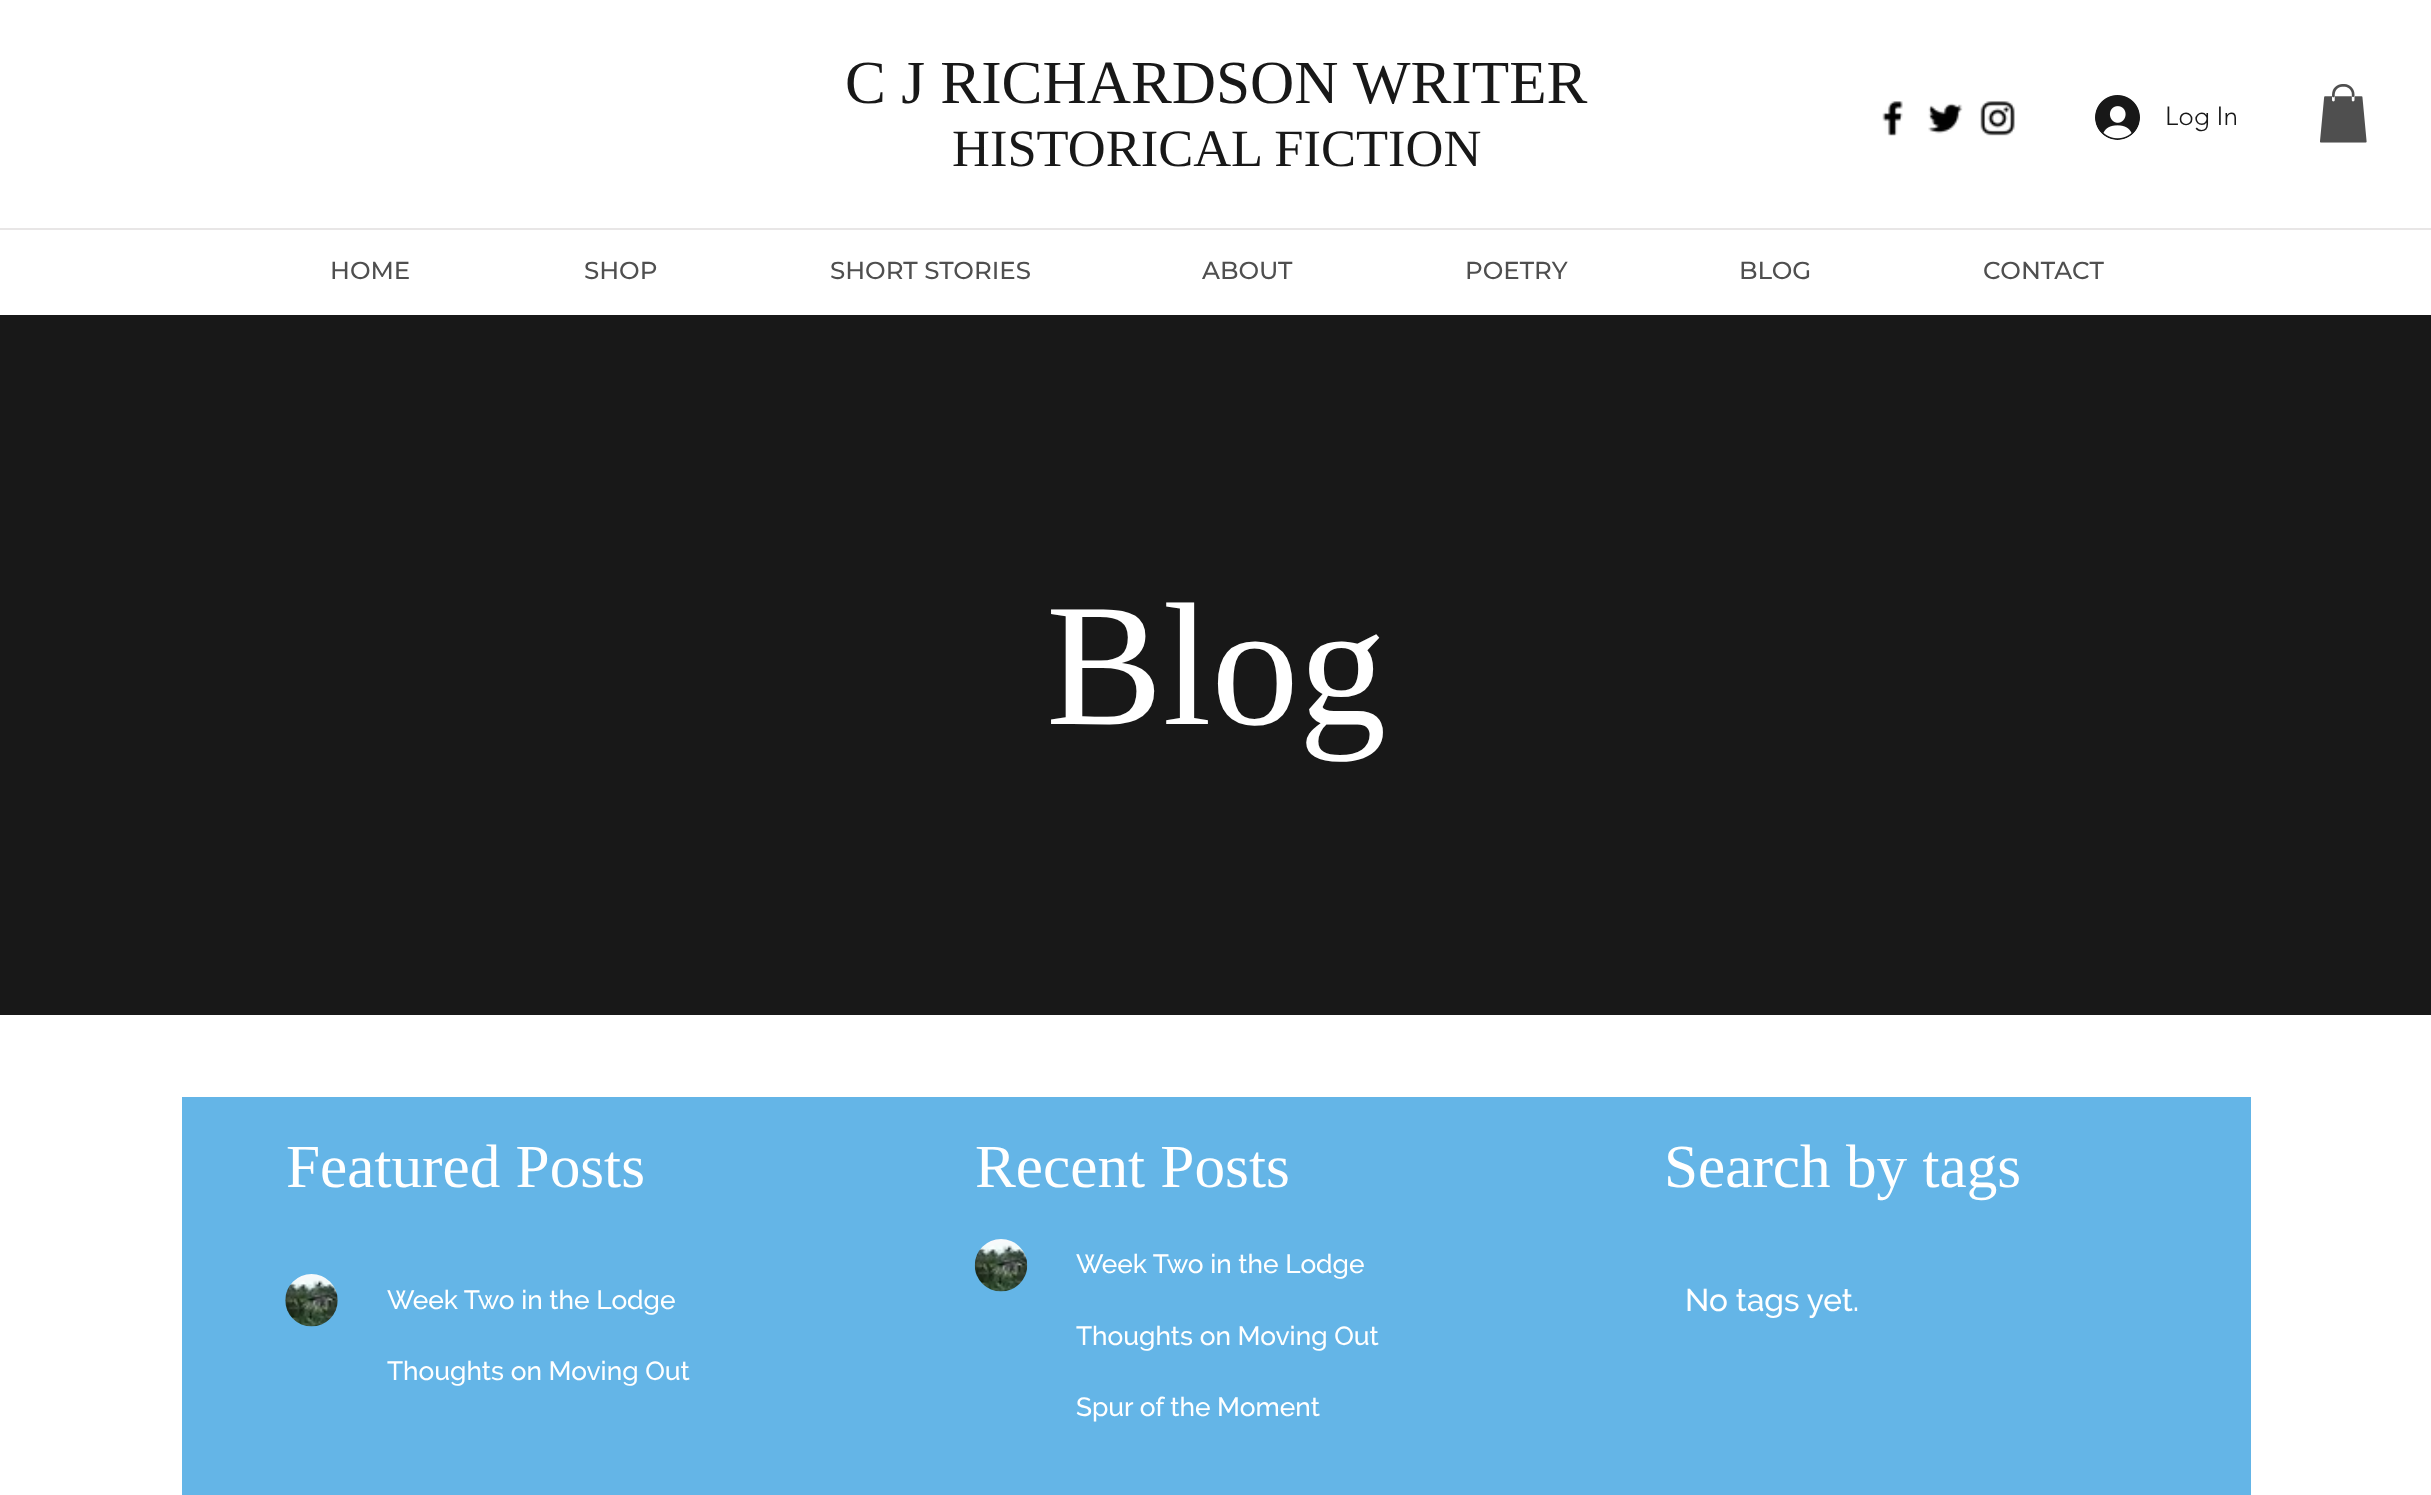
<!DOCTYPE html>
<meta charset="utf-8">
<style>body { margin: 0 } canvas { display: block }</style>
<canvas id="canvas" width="2431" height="1495"></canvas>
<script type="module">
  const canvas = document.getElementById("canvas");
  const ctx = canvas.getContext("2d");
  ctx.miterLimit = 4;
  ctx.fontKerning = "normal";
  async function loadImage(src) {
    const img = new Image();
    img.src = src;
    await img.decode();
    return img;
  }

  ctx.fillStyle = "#ffffff";
  ctx.fillRect(0, 0, 2431, 1495);
  ctx.font = "61.25px Liberation Serif";
  ctx.fillStyle = "#181818";
  ctx.fillText("C J RICHARDSON WRITER", 845, 103);
  ctx.font = "52.5px Liberation Serif";
  ctx.fillText("HISTORICAL FICTION", 952, 166);
  ctx.drawImage(await loadImage("img1.png"), 1882, 101, 21, 35);
  ctx.drawImage(await loadImage("img2.png"), 1928, 103, 35, 31);
  ctx.drawImage(await loadImage("img3.png"), 1980, 101, 35, 35);
  ctx.drawImage(await loadImage("img4.png"), 2095, 95, 45, 45);
  ctx.font = "300 26.25px 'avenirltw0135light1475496'";
  ctx.fillText("Log In", 2165, 125);
  ctx.drawImage(await loadImage("img5.png"), 2320, 84, 47, 59);
  ctx.fillStyle = "#e8e6e6";
  ctx.fillRect(0, 228, 2431, 2);
  ctx.font = "500 24.5px Montserrat";
  ctx.fillStyle = "#4f4f4f";
  ctx.fillText("HOME", 330, 279);
  ctx.fillText("SHOP", 584, 279);
  ctx.fillText("SHORT STORIES", 830, 279);
  ctx.fillText("ABOUT", 1202, 279);
  ctx.fillText("POETRY", 1465, 279);
  ctx.fillText("BLOG", 1739, 279);
  ctx.fillText("CONTACT", 1983, 279);
  ctx.fillStyle = "#181818";
  ctx.fillRect(0, 315, 2431, 700);
  ctx.font = "175px Liberation Serif";
  ctx.fillStyle = "#ffffff";
  ctx.fillText("Blog", 1046, 724);
  ctx.fillStyle = "#64b5e7";
  ctx.fillRect(182, 1097, 1379, 398);
  ctx.font = "61.25px Liberation Serif";
  ctx.fillStyle = "#ffffff";
  ctx.fillText("Featured Posts", 286, 1187);
  ctx.drawImage(await loadImage("img6.png"), 285, 1274, 53, 53);
  ctx.font = "500 26.25px Raleway";
  ctx.fillText("Week Two in the Lodge", 387, 1309);
  ctx.fillText("Thoughts on Moving Out", 387, 1380);
  ctx.font = "61.25px Liberation Serif";
  ctx.fillText("Recent Posts", 975, 1187);
  ctx.drawImage(await loadImage("img7.png"), 974, 1239, 54, 53);
  ctx.font = "500 26.25px Raleway";
  ctx.fillText("Week Two in the Lodge", 1076, 1273);
  ctx.fillText("Thoughts on Moving Out", 1076, 1345);
  ctx.fillText("Spur of the Moment", 1076, 1416);
  ctx.fillStyle = "#64b5e7";
  ctx.fillRect(1561, 1097, 690, 398);
  ctx.font = "61.25px Liberation Serif";
  ctx.fillStyle = "#ffffff";
  ctx.fillText("Search by tags", 1664, 1187);
  ctx.font = "500 31.5px Raleway";
  ctx.fillText("No tags yet.", 1685, 1311);
</script>
